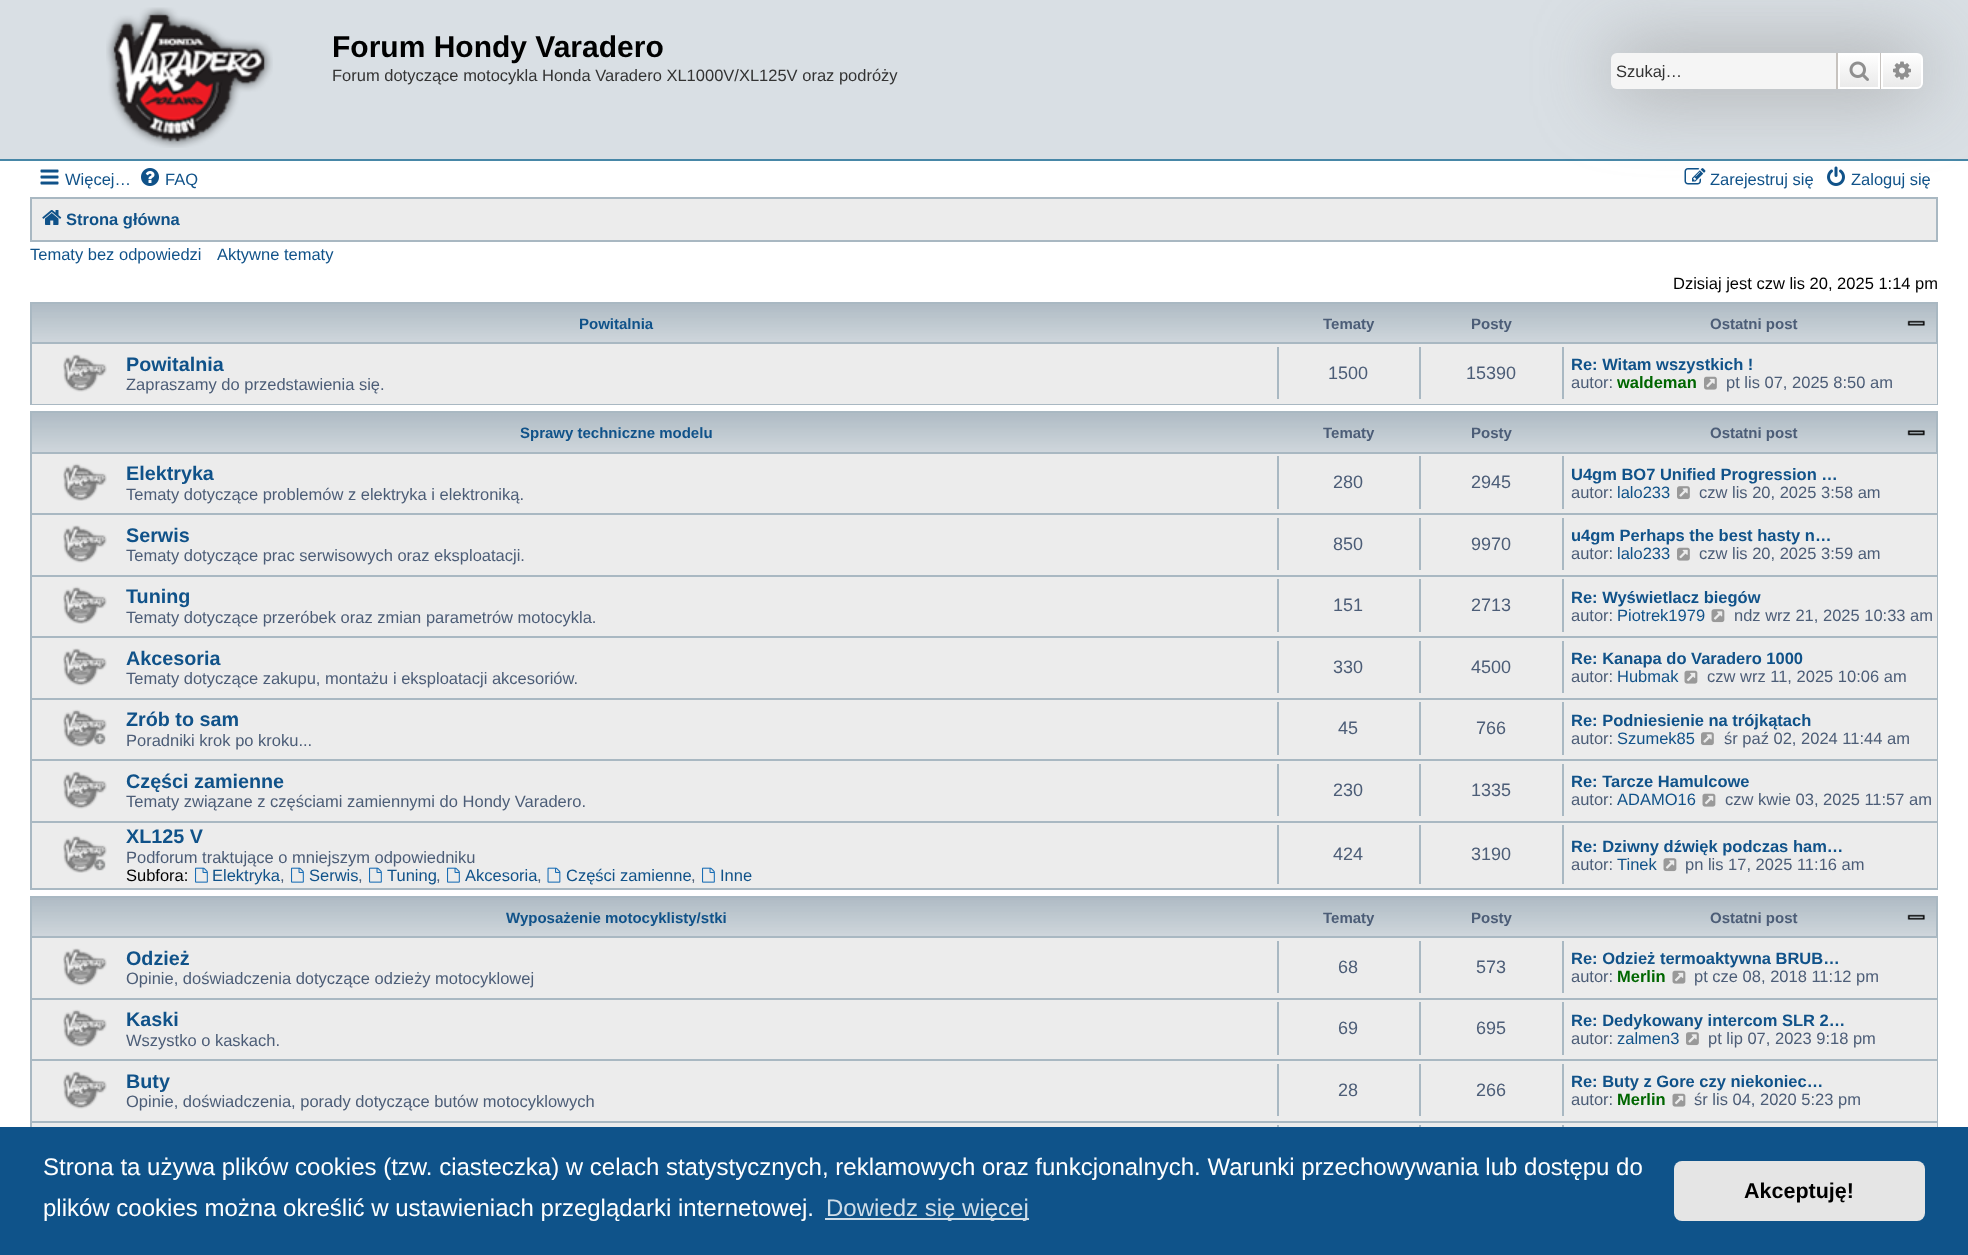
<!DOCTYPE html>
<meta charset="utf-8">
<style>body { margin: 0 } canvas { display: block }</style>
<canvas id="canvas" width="1968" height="1255"></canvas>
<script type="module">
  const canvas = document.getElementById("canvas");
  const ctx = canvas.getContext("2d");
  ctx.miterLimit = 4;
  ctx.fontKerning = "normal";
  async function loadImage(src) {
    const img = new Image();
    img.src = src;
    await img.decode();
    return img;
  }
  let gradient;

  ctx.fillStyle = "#ffffff";
  ctx.fillRect(0, 0, 1968, 1255);
  ctx.fillStyle = "#d9dfe4";
  ctx.fillRect(0, 0, 1968, 159);
  ctx.fillStyle = "#4787a7";
  ctx.fillRect(0, 159, 1968, 2);
  ctx.drawImage(await loadImage("img1.png"), 106, 7, 167, 141);
  ctx.font = "bold 30px Liberation Sans";
  ctx.fillStyle = "#000000";
  ctx.fillText("Forum Hondy Varadero", 332, 57);
  ctx.font = "16.5px Liberation Sans";
  ctx.fillStyle = "#333333";
  ctx.fillText("Forum dotyczące motocykla Honda Varadero XL1000V/XL125V oraz podróży", 332, 81);
  ctx.fillStyle = "#ececec";
  ctx.beginPath();
  ctx.rect(31, 198, 1906, 43);
  ctx.fill();
  ctx.strokeStyle = "#a9b8c2";
  ctx.lineWidth = 2;
  ctx.stroke();
  ctx.fillStyle = "#999999";
  ctx.filter = "blur(37.5px)";
  ctx.beginPath();
  ctx.roundRect(1611, 53, 312, 36, 6);
  ctx.fill();
  ctx.filter = "none";
  ctx.fillStyle = "#f5f5f5";
  ctx.beginPath();
  ctx.roundRect(1611, 53, 225, 36, [6, 0, 0, 6]);
  ctx.fill();
  ctx.fillStyle = "#333333";
  ctx.fillText("Szukaj…", 1616, 77);
  gradient = ctx.createLinearGradient(1859, 53, 1859, 89);
  gradient.addColorStop(0, "#ffffff");
  gradient.addColorStop(1, "#e9e9e9");
  ctx.fillStyle = gradient;
  ctx.fillRect(1840, 55, 38, 32);
  ctx.strokeStyle = "#ffffff";
  ctx.strokeRect(1839, 54, 40, 34);
  ctx.fillStyle = "#c7c3bf";
  ctx.fillRect(1880, 53, 1, 36);
  ctx.fillRect(1836, 53, 2, 36);
  ctx.drawImage(await loadImage("img2.png"), 1849, 61, 20, 20);
  gradient = ctx.createLinearGradient(1902, 53, 1902, 89);
  gradient.addColorStop(0, "#ffffff");
  gradient.addColorStop(1, "#e9e9e9");
  ctx.fillStyle = gradient;
  ctx.beginPath();
  ctx.roundRect(1882, 54, 40, 34, [0, 5, 5, 0]);
  ctx.fill();
  ctx.stroke();
  ctx.drawImage(await loadImage("img3.png"), 1893, 61, 18, 19);
  ctx.drawImage(await loadImage("img4.png"), 40, 169, 19, 16);
  ctx.fillStyle = "#105289";
  ctx.fillText("Więcej…", 65, 185);
  ctx.drawImage(await loadImage("img5.png"), 141, 168, 18, 18);
  ctx.fillText("FAQ", 165, 185);
  ctx.drawImage(await loadImage("img6.png"), 1684, 168, 22, 17);
  ctx.fillText("Zarejestruj się", 1710, 185);
  ctx.drawImage(await loadImage("img7.png"), 1827, 166, 18, 20);
  ctx.fillText("Zaloguj się", 1851, 185);
  ctx.drawImage(await loadImage("img8.png"), 42, 210, 20, 15);
  ctx.font = "bold 16.5px Liberation Sans";
  ctx.fillText("Strona główna", 66, 225);
  ctx.font = "16.5px Liberation Sans";
  ctx.fillText("Tematy bez odpowiedzi", 30, 260);
  ctx.fillText("Aktywne tematy", 217, 260);
  ctx.fillStyle = "#000000";
  ctx.fillText("Dzisiaj jest czw lis 20, 2025 1:14 pm", 1673, 289);
  ctx.drawImage(await loadImage("img9.png"), 32, 304, 1904, 38);
  ctx.strokeStyle = "#a9b8c2";
  ctx.strokeRect(31, 303, 1906, 101);
  ctx.font = "bold 15px Liberation Sans";
  ctx.fillStyle = "#105289";
  ctx.fillText("Powitalnia", 579, 329);
  ctx.fillStyle = "#4c5d77";
  ctx.fillText("Tematy", 1323, 329);
  ctx.fillText("Posty", 1471, 329);
  ctx.fillText("Ostatni post", 1710, 329);
  ctx.drawImage(await loadImage("img10.png"), 1907, 320, 18, 6);
  ctx.fillStyle = "#ececec";
  ctx.fillRect(32, 344, 1905, 60);
  ctx.fillStyle = "#a9b8c2";
  ctx.fillRect(32, 342, 1905, 2);
  ctx.drawImage(await loadImage("img11.png"), 63, 354, 44, 38);
  ctx.font = "bold 19.75px Liberation Sans";
  ctx.fillStyle = "#105289";
  ctx.fillText("Powitalnia", 126, 371);
  ctx.font = "16.5px Liberation Sans";
  ctx.fillStyle = "#4c5d77";
  ctx.fillText("Zapraszamy do przedstawienia się.", 126, 390);
  ctx.fillStyle = "#a9b8c2";
  ctx.fillRect(1277, 347, 2, 52);
  ctx.font = "18px Liberation Sans";
  ctx.fillStyle = "#4c5d77";
  ctx.fillText("1500", 1328, 379);
  ctx.fillStyle = "#a9b8c2";
  ctx.fillRect(1419, 347, 2, 52);
  ctx.fillStyle = "#4c5d77";
  ctx.fillText("15390", 1466, 379);
  ctx.fillStyle = "#a9b8c2";
  ctx.fillRect(1562, 347, 2, 52);
  ctx.font = "bold 16.5px Liberation Sans";
  ctx.fillStyle = "#105289";
  ctx.fillText("Re: Witam wszystkich !", 1571, 370);
  ctx.font = "16.5px Liberation Sans";
  ctx.fillStyle = "#4c5d77";
  ctx.fillText("autor:", 1571, 388);
  ctx.font = "bold 16.5px Liberation Sans";
  ctx.fillStyle = "#006600";
  ctx.fillText("waldeman", 1617, 388);
  ctx.drawImage(await loadImage("img12.png"), 1704, 376, 13, 14);
  ctx.font = "16.5px Liberation Sans";
  ctx.fillStyle = "#4c5d77";
  ctx.fillText("pt lis 07, 2025 8:50 am", 1726, 388);
  ctx.drawImage(await loadImage("img13.png"), 32, 413, 1904, 39);
  ctx.strokeRect(31, 412, 1906, 477);
  ctx.font = "bold 15px Liberation Sans";
  ctx.fillStyle = "#105289";
  ctx.fillText("Sprawy techniczne modelu", 520, 438);
  ctx.fillStyle = "#4c5d77";
  ctx.fillText("Tematy", 1323, 438);
  ctx.fillText("Posty", 1471, 438);
  ctx.fillText("Ostatni post", 1710, 438);
  ctx.drawImage(await loadImage("img14.png"), 1907, 430, 18, 6);
  ctx.fillStyle = "#ececec";
  ctx.fillRect(32, 454, 1905, 434);
  ctx.fillStyle = "#a9b8c2";
  ctx.fillRect(32, 452, 1905, 2);
  ctx.drawImage(await loadImage("img15.png"), 63, 463, 44, 38);
  ctx.font = "bold 19.75px Liberation Sans";
  ctx.fillStyle = "#105289";
  ctx.fillText("Elektryka", 126, 480);
  ctx.font = "16.5px Liberation Sans";
  ctx.fillStyle = "#4c5d77";
  ctx.fillText("Tematy dotyczące problemów z elektryka i elektroniką.", 126, 500);
  ctx.fillStyle = "#a9b8c2";
  ctx.fillRect(1277, 456, 2, 53);
  ctx.font = "18px Liberation Sans";
  ctx.fillStyle = "#4c5d77";
  ctx.fillText("280", 1333, 488);
  ctx.fillStyle = "#a9b8c2";
  ctx.fillRect(1419, 456, 2, 53);
  ctx.fillStyle = "#4c5d77";
  ctx.fillText("2945", 1471, 488);
  ctx.fillStyle = "#a9b8c2";
  ctx.fillRect(1562, 456, 2, 53);
  ctx.font = "bold 16.5px Liberation Sans";
  ctx.fillStyle = "#105289";
  ctx.fillText("U4gm BO7 Unified Progression …", 1571, 480);
  ctx.font = "16.5px Liberation Sans";
  ctx.fillStyle = "#4c5d77";
  ctx.fillText("autor:", 1571, 498);
  ctx.fillStyle = "#105289";
  ctx.fillText("lalo233", 1617, 498);
  ctx.drawImage(await loadImage("img16.png"), 1677, 486, 13, 14);
  ctx.fillStyle = "#4c5d77";
  ctx.fillText("czw lis 20, 2025 3:58 am", 1699, 498);
  ctx.fillStyle = "#a9b8c2";
  ctx.fillRect(32, 513, 1905, 2);
  ctx.drawImage(await loadImage("img11.png"), 63, 525, 44, 38);
  ctx.font = "bold 19.75px Liberation Sans";
  ctx.fillStyle = "#105289";
  ctx.fillText("Serwis", 126, 542);
  ctx.font = "16.5px Liberation Sans";
  ctx.fillStyle = "#4c5d77";
  ctx.fillText("Tematy dotyczące prac serwisowych oraz eksploatacji.", 126, 561);
  ctx.fillStyle = "#a9b8c2";
  ctx.fillRect(1277, 518, 2, 52);
  ctx.font = "18px Liberation Sans";
  ctx.fillStyle = "#4c5d77";
  ctx.fillText("850", 1333, 550);
  ctx.fillStyle = "#a9b8c2";
  ctx.fillRect(1419, 518, 2, 52);
  ctx.fillStyle = "#4c5d77";
  ctx.fillText("9970", 1471, 550);
  ctx.fillStyle = "#a9b8c2";
  ctx.fillRect(1562, 518, 2, 52);
  ctx.font = "bold 16.5px Liberation Sans";
  ctx.fillStyle = "#105289";
  ctx.fillText("u4gm Perhaps the best hasty n…", 1571, 541);
  ctx.font = "16.5px Liberation Sans";
  ctx.fillStyle = "#4c5d77";
  ctx.fillText("autor:", 1571, 559);
  ctx.fillStyle = "#105289";
  ctx.fillText("lalo233", 1617, 559);
  ctx.drawImage(await loadImage("img12.png"), 1677, 547, 13, 14);
  ctx.fillStyle = "#4c5d77";
  ctx.fillText("czw lis 20, 2025 3:59 am", 1699, 559);
  ctx.fillStyle = "#a9b8c2";
  ctx.fillRect(32, 575, 1905, 2);
  ctx.drawImage(await loadImage("img15.png"), 63, 586, 44, 38);
  ctx.font = "bold 19.75px Liberation Sans";
  ctx.fillStyle = "#105289";
  ctx.fillText("Tuning", 126, 603);
  ctx.font = "16.5px Liberation Sans";
  ctx.fillStyle = "#4c5d77";
  ctx.fillText("Tematy dotyczące przeróbek oraz zmian parametrów motocykla.", 126, 623);
  ctx.fillStyle = "#a9b8c2";
  ctx.fillRect(1277, 579, 2, 53);
  ctx.font = "18px Liberation Sans";
  ctx.fillStyle = "#4c5d77";
  ctx.fillText("151", 1333, 611);
  ctx.fillStyle = "#a9b8c2";
  ctx.fillRect(1419, 579, 2, 53);
  ctx.fillStyle = "#4c5d77";
  ctx.fillText("2713", 1471, 611);
  ctx.fillStyle = "#a9b8c2";
  ctx.fillRect(1562, 579, 2, 53);
  ctx.font = "bold 16.5px Liberation Sans";
  ctx.fillStyle = "#105289";
  ctx.fillText("Re: Wyświetlacz biegów", 1571, 603);
  ctx.font = "16.5px Liberation Sans";
  ctx.fillStyle = "#4c5d77";
  ctx.fillText("autor:", 1571, 621);
  ctx.fillStyle = "#105289";
  ctx.fillText("Piotrek1979", 1617, 621);
  ctx.drawImage(await loadImage("img17.png"), 1711, 609, 14, 14);
  ctx.fillStyle = "#4c5d77";
  ctx.fillText("ndz wrz 21, 2025 10:33 am", 1734, 621);
  ctx.fillStyle = "#a9b8c2";
  ctx.fillRect(32, 636, 1905, 2);
  ctx.drawImage(await loadImage("img11.png"), 63, 648, 44, 38);
  ctx.font = "bold 19.75px Liberation Sans";
  ctx.fillStyle = "#105289";
  ctx.fillText("Akcesoria", 126, 665);
  ctx.font = "16.5px Liberation Sans";
  ctx.fillStyle = "#4c5d77";
  ctx.fillText("Tematy dotyczące zakupu, montażu i eksploatacji akcesoriów.", 126, 684);
  ctx.fillStyle = "#a9b8c2";
  ctx.fillRect(1277, 641, 2, 52);
  ctx.font = "18px Liberation Sans";
  ctx.fillStyle = "#4c5d77";
  ctx.fillText("330", 1333, 673);
  ctx.fillStyle = "#a9b8c2";
  ctx.fillRect(1419, 641, 2, 52);
  ctx.fillStyle = "#4c5d77";
  ctx.fillText("4500", 1471, 673);
  ctx.fillStyle = "#a9b8c2";
  ctx.fillRect(1562, 641, 2, 52);
  ctx.font = "bold 16.5px Liberation Sans";
  ctx.fillStyle = "#105289";
  ctx.fillText("Re: Kanapa do Varadero 1000", 1571, 664);
  ctx.font = "16.5px Liberation Sans";
  ctx.fillStyle = "#4c5d77";
  ctx.fillText("autor:", 1571, 682);
  ctx.fillStyle = "#105289";
  ctx.fillText("Hubmak", 1617, 682);
  ctx.drawImage(await loadImage("img18.png"), 1684, 670, 14, 14);
  ctx.fillStyle = "#4c5d77";
  ctx.fillText("czw wrz 11, 2025 10:06 am", 1707, 682);
  ctx.fillStyle = "#a9b8c2";
  ctx.fillRect(32, 698, 1905, 2);
  ctx.drawImage(await loadImage("img19.png"), 63, 709, 44, 38);
  ctx.font = "bold 19.75px Liberation Sans";
  ctx.fillStyle = "#105289";
  ctx.fillText("Zrób to sam", 126, 726);
  ctx.font = "16.5px Liberation Sans";
  ctx.fillStyle = "#4c5d77";
  ctx.fillText("Poradniki krok po kroku...", 126, 746);
  ctx.fillStyle = "#a9b8c2";
  ctx.fillRect(1277, 702, 2, 53);
  ctx.font = "18px Liberation Sans";
  ctx.fillStyle = "#4c5d77";
  ctx.fillText("45", 1338, 734);
  ctx.fillStyle = "#a9b8c2";
  ctx.fillRect(1419, 702, 2, 53);
  ctx.fillStyle = "#4c5d77";
  ctx.fillText("766", 1476, 734);
  ctx.fillStyle = "#a9b8c2";
  ctx.fillRect(1562, 702, 2, 53);
  ctx.font = "bold 16.5px Liberation Sans";
  ctx.fillStyle = "#105289";
  ctx.fillText("Re: Podniesienie na trójkątach", 1571, 726);
  ctx.font = "16.5px Liberation Sans";
  ctx.fillStyle = "#4c5d77";
  ctx.fillText("autor:", 1571, 744);
  ctx.fillStyle = "#105289";
  ctx.fillText("Szumek85", 1617, 744);
  ctx.drawImage(await loadImage("img16.png"), 1701, 732, 13, 14);
  ctx.fillStyle = "#4c5d77";
  ctx.fillText("śr paź 02, 2024 11:44 am", 1724, 744);
  ctx.fillStyle = "#a9b8c2";
  ctx.fillRect(32, 759, 1905, 2);
  ctx.drawImage(await loadImage("img11.png"), 63, 771, 44, 38);
  ctx.font = "bold 19.75px Liberation Sans";
  ctx.fillStyle = "#105289";
  ctx.fillText("Części zamienne", 126, 788);
  ctx.font = "16.5px Liberation Sans";
  ctx.fillStyle = "#4c5d77";
  ctx.fillText("Tematy związane z częściami zamiennymi do Hondy Varadero.", 126, 807);
  ctx.fillStyle = "#a9b8c2";
  ctx.fillRect(1277, 764, 2, 52);
  ctx.font = "18px Liberation Sans";
  ctx.fillStyle = "#4c5d77";
  ctx.fillText("230", 1333, 796);
  ctx.fillStyle = "#a9b8c2";
  ctx.fillRect(1419, 764, 2, 52);
  ctx.fillStyle = "#4c5d77";
  ctx.fillText("1335", 1471, 796);
  ctx.fillStyle = "#a9b8c2";
  ctx.fillRect(1562, 764, 2, 52);
  ctx.font = "bold 16.5px Liberation Sans";
  ctx.fillStyle = "#105289";
  ctx.fillText("Re: Tarcze Hamulcowe", 1571, 787);
  ctx.font = "16.5px Liberation Sans";
  ctx.fillStyle = "#4c5d77";
  ctx.fillText("autor:", 1571, 805);
  ctx.fillStyle = "#105289";
  ctx.fillText("ADAMO16", 1617, 805);
  ctx.drawImage(await loadImage("img18.png"), 1702, 793, 14, 14);
  ctx.fillStyle = "#4c5d77";
  ctx.fillText("czw kwie 03, 2025 11:57 am", 1725, 805);
  ctx.fillStyle = "#a9b8c2";
  ctx.fillRect(32, 821, 1905, 2);
  ctx.drawImage(await loadImage("img19.png"), 63, 835, 44, 38);
  ctx.font = "bold 19.75px Liberation Sans";
  ctx.fillStyle = "#105289";
  ctx.fillText("XL125 V", 126, 843);
  ctx.font = "16.5px Liberation Sans";
  ctx.fillStyle = "#4c5d77";
  ctx.fillText("Podforum traktujące o mniejszym odpowiedniku", 126, 863);
  ctx.fillStyle = "#000000";
  ctx.fillText("Subfora:", 126, 881);
  ctx.drawImage(await loadImage("img20.png"), 195, 867, 13, 16);
  ctx.fillStyle = "#105289";
  ctx.fillText("Elektryka", 212, 881);
  ctx.fillStyle = "#4c5d77";
  ctx.fillText(",", 280, 881);
  ctx.drawImage(await loadImage("img20.png"), 291, 867, 13, 16);
  ctx.fillStyle = "#105289";
  ctx.fillText("Serwis", 309, 881);
  ctx.fillStyle = "#4c5d77";
  ctx.fillText(",", 358, 881);
  ctx.drawImage(await loadImage("img20.png"), 369, 867, 13, 16);
  ctx.fillStyle = "#105289";
  ctx.fillText("Tuning", 387, 881);
  ctx.fillStyle = "#4c5d77";
  ctx.fillText(",", 436, 881);
  ctx.drawImage(await loadImage("img20.png"), 447, 867, 13, 16);
  ctx.fillStyle = "#105289";
  ctx.fillText("Akcesoria", 465, 881);
  ctx.fillStyle = "#4c5d77";
  ctx.fillText(",", 537, 881);
  ctx.drawImage(await loadImage("img21.png"), 547, 867, 14, 16);
  ctx.fillStyle = "#105289";
  ctx.fillText("Części zamienne", 566, 881);
  ctx.fillStyle = "#4c5d77";
  ctx.fillText(",", 691, 881);
  ctx.drawImage(await loadImage("img20.png"), 702, 867, 13, 16);
  ctx.fillStyle = "#105289";
  ctx.fillText("Inne", 720, 881);
  ctx.fillStyle = "#a9b8c2";
  ctx.fillRect(1277, 825, 2, 59);
  ctx.font = "18px Liberation Sans";
  ctx.fillStyle = "#4c5d77";
  ctx.fillText("424", 1333, 860);
  ctx.fillStyle = "#a9b8c2";
  ctx.fillRect(1419, 825, 2, 59);
  ctx.fillStyle = "#4c5d77";
  ctx.fillText("3190", 1471, 860);
  ctx.fillStyle = "#a9b8c2";
  ctx.fillRect(1562, 825, 2, 59);
  ctx.font = "bold 16.5px Liberation Sans";
  ctx.fillStyle = "#105289";
  ctx.fillText("Re: Dziwny dźwięk podczas ham…", 1571, 852);
  ctx.font = "16.5px Liberation Sans";
  ctx.fillStyle = "#4c5d77";
  ctx.fillText("autor:", 1571, 870);
  ctx.fillStyle = "#105289";
  ctx.fillText("Tinek", 1617, 870);
  ctx.drawImage(await loadImage("img17.png"), 1663, 858, 14, 14);
  ctx.fillStyle = "#4c5d77";
  ctx.fillText("pn lis 17, 2025 11:16 am", 1685, 870);
  ctx.drawImage(await loadImage("img22.png"), 32, 898, 1904, 38);
  ctx.strokeRect(31, 897, 1906, 286);
  ctx.font = "bold 15px Liberation Sans";
  ctx.fillStyle = "#105289";
  ctx.fillText("Wyposażenie motocyklisty/stki", 506, 923);
  ctx.fillStyle = "#4c5d77";
  ctx.fillText("Tematy", 1323, 923);
  ctx.fillText("Posty", 1471, 923);
  ctx.fillText("Ostatni post", 1710, 923);
  ctx.drawImage(await loadImage("img23.png"), 1907, 914, 18, 6);
  ctx.fillStyle = "#ececec";
  ctx.fillRect(32, 938, 1905, 189);
  ctx.fillStyle = "#a9b8c2";
  ctx.fillRect(32, 936, 1905, 2);
  ctx.drawImage(await loadImage("img11.png"), 63, 948, 44, 38);
  ctx.font = "bold 19.75px Liberation Sans";
  ctx.fillStyle = "#105289";
  ctx.fillText("Odzież", 126, 965);
  ctx.font = "16.5px Liberation Sans";
  ctx.fillStyle = "#4c5d77";
  ctx.fillText("Opinie, doświadczenia dotyczące odzieży motocyklowej", 126, 984);
  ctx.fillStyle = "#a9b8c2";
  ctx.fillRect(1277, 941, 2, 52);
  ctx.font = "18px Liberation Sans";
  ctx.fillStyle = "#4c5d77";
  ctx.fillText("68", 1338, 973);
  ctx.fillStyle = "#a9b8c2";
  ctx.fillRect(1419, 941, 2, 52);
  ctx.fillStyle = "#4c5d77";
  ctx.fillText("573", 1476, 973);
  ctx.fillStyle = "#a9b8c2";
  ctx.fillRect(1562, 941, 2, 52);
  ctx.font = "bold 16.5px Liberation Sans";
  ctx.fillStyle = "#105289";
  ctx.fillText("Re: Odzież termoaktywna BRUB…", 1571, 964);
  ctx.font = "16.5px Liberation Sans";
  ctx.fillStyle = "#4c5d77";
  ctx.fillText("autor:", 1571, 982);
  ctx.font = "bold 16.5px Liberation Sans";
  ctx.fillStyle = "#006600";
  ctx.fillText("Merlin", 1617, 982);
  ctx.drawImage(await loadImage("img18.png"), 1672, 970, 14, 14);
  ctx.font = "16.5px Liberation Sans";
  ctx.fillStyle = "#4c5d77";
  ctx.fillText("pt cze 08, 2018 11:12 pm", 1694, 982);
  ctx.fillStyle = "#a9b8c2";
  ctx.fillRect(32, 998, 1905, 2);
  ctx.drawImage(await loadImage("img15.png"), 63, 1009, 44, 38);
  ctx.font = "bold 19.75px Liberation Sans";
  ctx.fillStyle = "#105289";
  ctx.fillText("Kaski", 126, 1026);
  ctx.font = "16.5px Liberation Sans";
  ctx.fillStyle = "#4c5d77";
  ctx.fillText("Wszystko o kaskach.", 126, 1046);
  ctx.fillStyle = "#a9b8c2";
  ctx.fillRect(1277, 1002, 2, 53);
  ctx.font = "18px Liberation Sans";
  ctx.fillStyle = "#4c5d77";
  ctx.fillText("69", 1338, 1034);
  ctx.fillStyle = "#a9b8c2";
  ctx.fillRect(1419, 1002, 2, 53);
  ctx.fillStyle = "#4c5d77";
  ctx.fillText("695", 1476, 1034);
  ctx.fillStyle = "#a9b8c2";
  ctx.fillRect(1562, 1002, 2, 53);
  ctx.font = "bold 16.5px Liberation Sans";
  ctx.fillStyle = "#105289";
  ctx.fillText("Re: Dedykowany intercom SLR 2…", 1571, 1026);
  ctx.font = "16.5px Liberation Sans";
  ctx.fillStyle = "#4c5d77";
  ctx.fillText("autor:", 1571, 1044);
  ctx.fillStyle = "#105289";
  ctx.fillText("zalmen3", 1617, 1044);
  ctx.drawImage(await loadImage("img16.png"), 1686, 1032, 13, 14);
  ctx.fillStyle = "#4c5d77";
  ctx.fillText("pt lip 07, 2023 9:18 pm", 1708, 1044);
  ctx.fillStyle = "#a9b8c2";
  ctx.fillRect(32, 1059, 1905, 2);
  ctx.drawImage(await loadImage("img11.png"), 63, 1071, 44, 38);
  ctx.font = "bold 19.75px Liberation Sans";
  ctx.fillStyle = "#105289";
  ctx.fillText("Buty", 126, 1088);
  ctx.font = "16.5px Liberation Sans";
  ctx.fillStyle = "#4c5d77";
  ctx.fillText("Opinie, doświadczenia, porady dotyczące butów motocyklowych", 126, 1107);
  ctx.fillStyle = "#a9b8c2";
  ctx.fillRect(1277, 1064, 2, 52);
  ctx.font = "18px Liberation Sans";
  ctx.fillStyle = "#4c5d77";
  ctx.fillText("28", 1338, 1096);
  ctx.fillStyle = "#a9b8c2";
  ctx.fillRect(1419, 1064, 2, 52);
  ctx.fillStyle = "#4c5d77";
  ctx.fillText("266", 1476, 1096);
  ctx.fillStyle = "#a9b8c2";
  ctx.fillRect(1562, 1064, 2, 52);
  ctx.font = "bold 16.5px Liberation Sans";
  ctx.fillStyle = "#105289";
  ctx.fillText("Re: Buty z Gore czy niekoniec…", 1571, 1087);
  ctx.font = "16.5px Liberation Sans";
  ctx.fillStyle = "#4c5d77";
  ctx.fillText("autor:", 1571, 1105);
  ctx.font = "bold 16.5px Liberation Sans";
  ctx.fillStyle = "#006600";
  ctx.fillText("Merlin", 1617, 1105);
  ctx.drawImage(await loadImage("img18.png"), 1672, 1093, 14, 14);
  ctx.font = "16.5px Liberation Sans";
  ctx.fillStyle = "#4c5d77";
  ctx.fillText("śr lis 04, 2020 5:23 pm", 1694, 1105);
  ctx.fillStyle = "#a9b8c2";
  ctx.fillRect(32, 1121, 1905, 2);
  ctx.fillRect(1277, 1125, 2, 2);
  ctx.fillRect(1419, 1125, 2, 2);
  ctx.fillRect(1562, 1125, 2, 2);
  ctx.fillStyle = "#0f538a";
  ctx.fillRect(0, 1127, 1968, 128);
  ctx.font = "24px Liberation Sans";
  ctx.fillStyle = "#ffffff";
  ctx.fillText("Strona ta używa plików cookies (tzw. ciasteczka) w celach statystycznych, reklamowych oraz funkcjonalnych. Warunki przechowywania lub dostępu do", 43, 1175);
  ctx.fillText("plików cookies można określić w ustawieniach przeglądarki internetowej.", 43, 1216);
  ctx.fillStyle = "#cfdde8";
  ctx.fillRect(825, 1218, 204, 2);
  ctx.fillText("Dowiedz się więcej", 826, 1216);
  ctx.fillStyle = "#e5e5e5";
  ctx.beginPath();
  ctx.roundRect(1674, 1161, 251, 60, 8);
  ctx.fill();
  ctx.font = "bold 21.5px Liberation Sans";
  ctx.fillStyle = "#000000";
  ctx.fillText("Akceptuję!", 1744, 1198);
</script>
